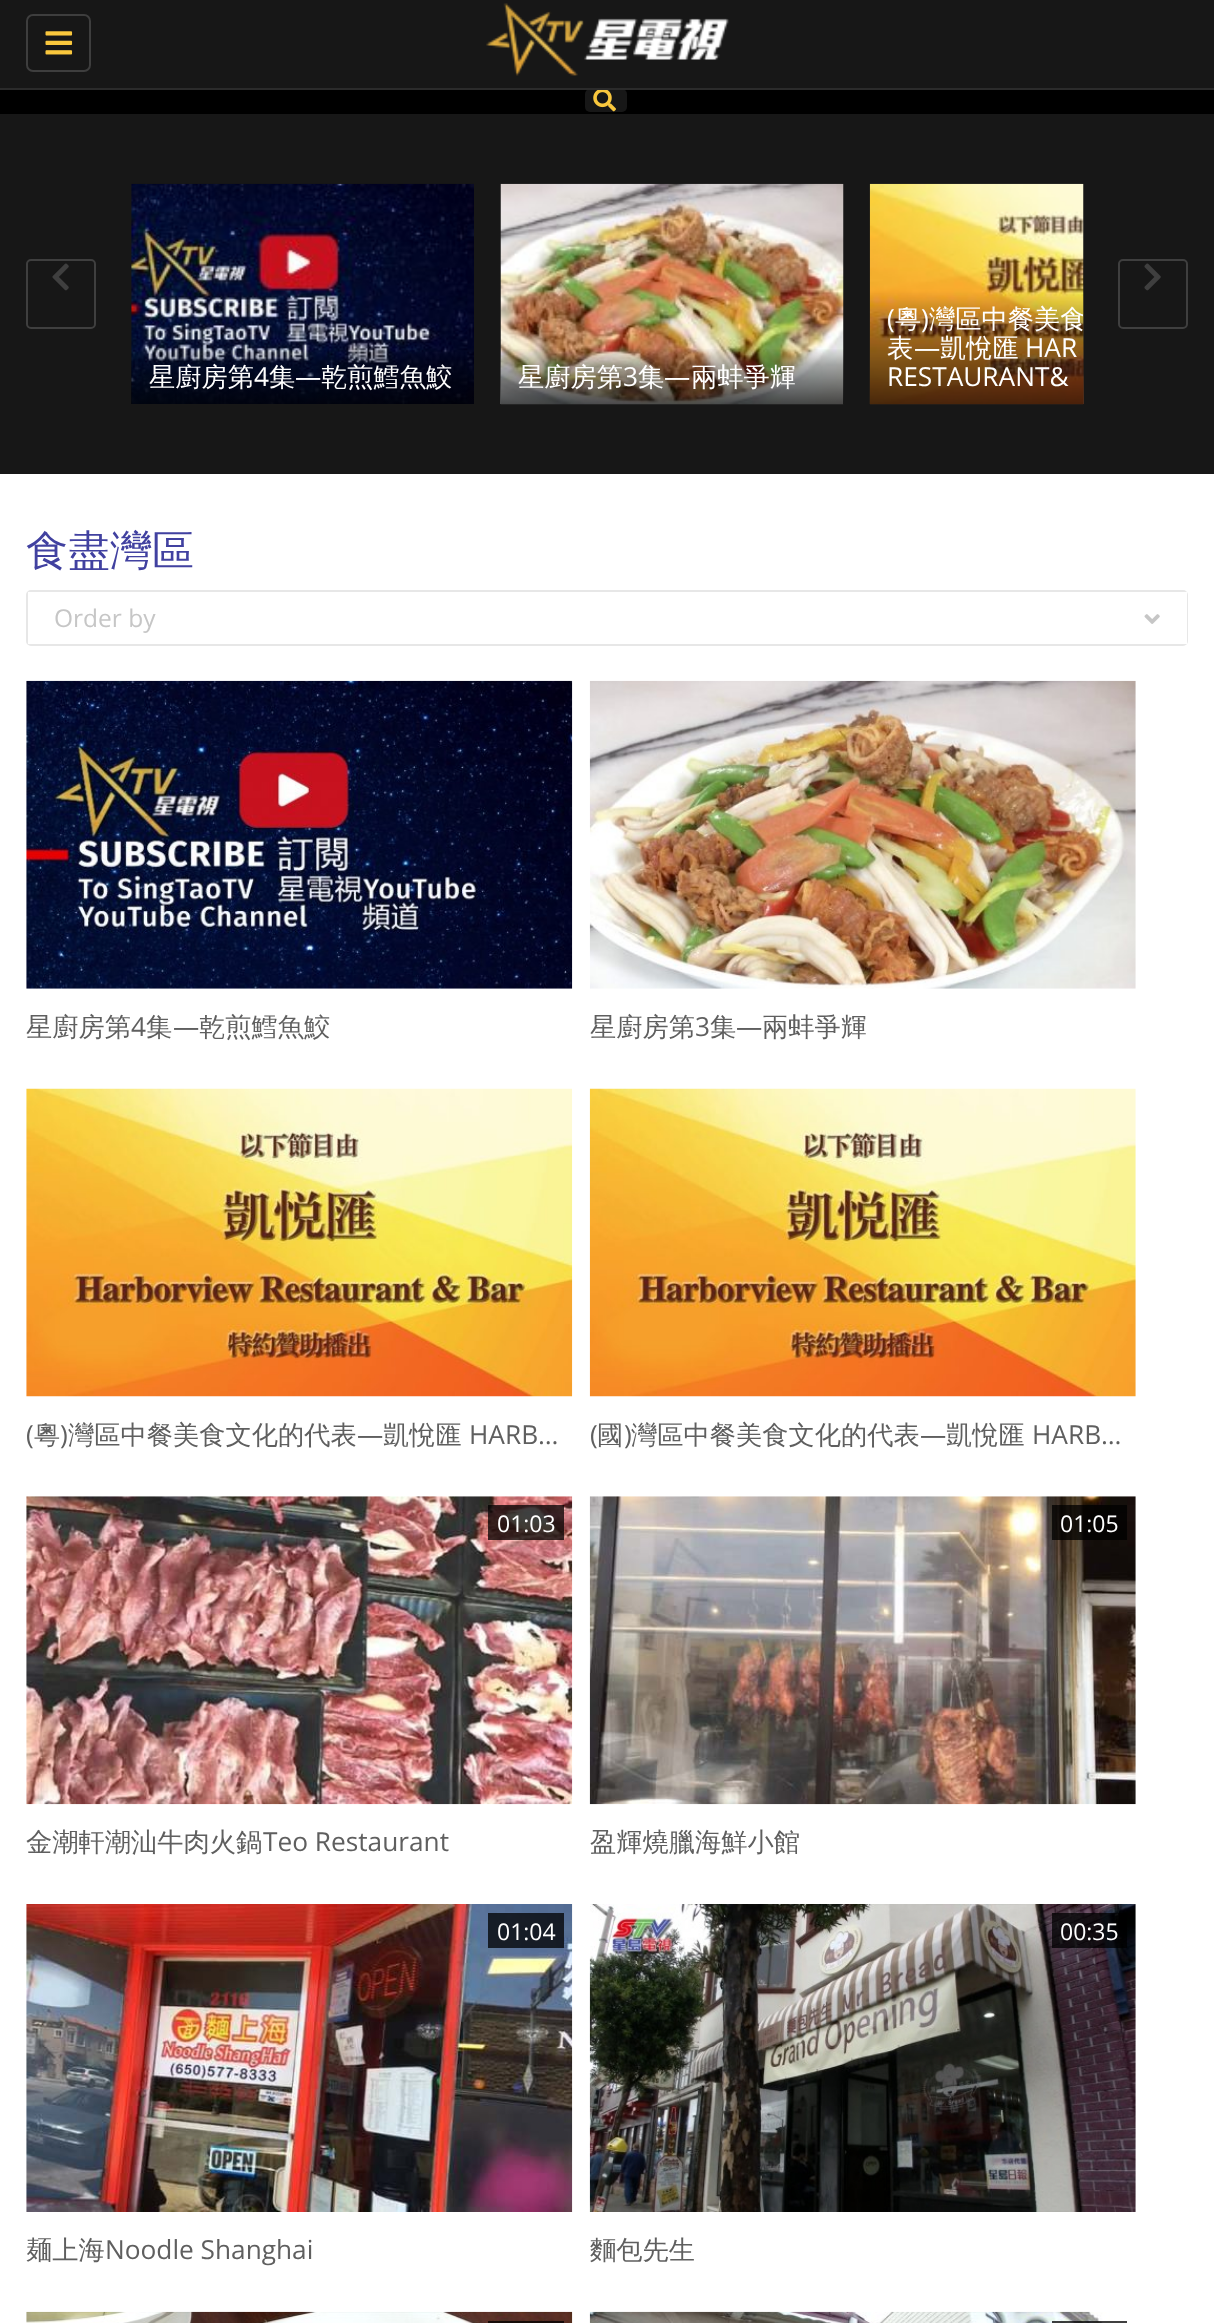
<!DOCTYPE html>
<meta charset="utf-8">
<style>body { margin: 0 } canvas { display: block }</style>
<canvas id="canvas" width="1214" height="2323"></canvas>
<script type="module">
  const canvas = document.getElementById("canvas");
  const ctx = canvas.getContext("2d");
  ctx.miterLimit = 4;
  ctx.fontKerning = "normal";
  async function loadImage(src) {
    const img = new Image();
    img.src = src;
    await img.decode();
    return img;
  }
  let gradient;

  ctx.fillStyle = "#ffffff";
  ctx.fillRect(0, 0, 1214, 2323);
  ctx.fillStyle = "#171717";
  ctx.fillRect(0, 0, 1214, 88);
  ctx.fillStyle = "#000000";
  ctx.fillRect(0, 90, 1214, 24);
  ctx.fillStyle = "#171717";
  ctx.beginPath();
  ctx.roundRect(585, 89, 42, 23, 5);
  ctx.fill();
  ctx.fillStyle = "#2b2b2b";
  ctx.fillRect(0, 88, 1214, 2);
  ctx.beginPath();
  ctx.roundRect(27, 15, 63, 56, 6);
  ctx.strokeStyle = "#3e3e3e";
  ctx.lineWidth = 2;
  ctx.stroke();
  ctx.drawImage(await loadImage("img1.png"), 45, 31, 28, 24);
  ctx.drawImage(await loadImage("img2.png"), 486, 3, 243, 73);
  ctx.drawImage(await loadImage("img3.png"), 593, 90, 23, 22);
  ctx.fillStyle = "#171717";
  ctx.fillRect(0, 114, 1214, 360);
  ctx.beginPath();
  ctx.roundRect(27, 260, 68, 68, 4);
  ctx.strokeStyle = "#3f3f3f";
  ctx.stroke();
  ctx.drawImage(await loadImage("img4.png"), 52, 263, 17, 28);
  ctx.beginPath();
  ctx.roundRect(1119, 260, 68, 68, 4);
  ctx.stroke();
  ctx.drawImage(await loadImage("img5.png"), 1144, 263, 17, 28);
  ctx.drawImage(await loadImage("img6.png"), 131, 183, 343, 221);
  gradient = ctx.createLinearGradient(303, 348, 303, 404);
  gradient.addColorStop(0, "rgba(0, 0, 0, 0)");
  gradient.addColorStop(0.3, "rgba(0, 0, 0, 0.3)");
  gradient.addColorStop(1, "rgba(0, 0, 0, 0.7)");
  ctx.fillStyle = gradient;
  ctx.fillRect(131, 349, 343, 55);
  ctx.font = "500 26.25px WenQuanYi Zen Hei";
  ctx.fillStyle = "#ffffff";
  ctx.fillText("星廚房第", 149, 386);
  ctx.font = "26.25px Open Sans";
  ctx.fillText("4", 254, 386);
  ctx.font = "500 26.25px WenQuanYi Zen Hei";
  ctx.fillText("集", 269, 386);
  ctx.font = "26.25px Open Sans";
  ctx.fillText("—", 295, 386);
  ctx.font = "500 26.25px WenQuanYi Zen Hei";
  ctx.fillText("乾煎鱈魚鮫", 321, 386);
  ctx.drawImage(await loadImage("img7.png"), 500, 183, 344, 222);
  gradient = ctx.createLinearGradient(672, 348, 672, 404);
  gradient.addColorStop(0, "rgba(0, 0, 0, 0)");
  gradient.addColorStop(0.3, "rgba(0, 0, 0, 0.3)");
  gradient.addColorStop(1, "rgba(0, 0, 0, 0.7)");
  ctx.fillStyle = gradient;
  ctx.fillRect(501, 349, 343, 55);
  ctx.fillStyle = "#ffffff";
  ctx.fillText("星廚房第", 518, 386);
  ctx.font = "26.25px Open Sans";
  ctx.fillText("3", 623, 386);
  ctx.font = "500 26.25px WenQuanYi Zen Hei";
  ctx.fillText("集", 638, 386);
  ctx.font = "26.25px Open Sans";
  ctx.fillText("—", 664, 386);
  ctx.font = "500 26.25px WenQuanYi Zen Hei";
  ctx.fillText("兩蚌爭輝", 691, 386);
  ctx.drawImage(await loadImage("img8.png"), 869, 183, 215, 222);
  ctx.font = "26.25px Open Sans";
  ctx.fillText("(", 887, 328);
  ctx.font = "500 26.25px WenQuanYi Zen Hei";
  ctx.fillText("粵", 895, 328);
  ctx.font = "26.25px Open Sans";
  ctx.fillText(")", 921, 328);
  ctx.save();
  ctx.beginPath();
  ctx.rect(870, 184, 213, 220);
  ctx.clip();
  ctx.font = "500 26.25px WenQuanYi Zen Hei";
  ctx.fillText("灣區中餐美食", 929, 328);
  ctx.restore();
  ctx.font = "500 26.25px WenQuanYi Zen Hei";
  ctx.fillText("表", 887, 357);
  ctx.font = "26.25px Open Sans";
  ctx.fillText("—", 914, 357);
  ctx.font = "500 26.25px WenQuanYi Zen Hei";
  ctx.fillText("凱悅匯", 940, 357);
  ctx.font = "26.25px Open Sans";
  ctx.fillText("HAR", 1025, 357);
  ctx.fillText("RESTAURANT&", 887, 386);
  ctx.font = "500 42px WenQuanYi Zen Hei";
  ctx.fillStyle = "#4141a0";
  ctx.fillText("食盡灣區", 26, 565);
  ctx.beginPath();
  ctx.roundRect(27, 591, 1160, 54, 4);
  ctx.strokeStyle = "#e7e7e7";
  ctx.stroke();
  ctx.fillStyle = "#ffffff";
  ctx.fillRect(28, 592, 1159, 52);
  ctx.font = "24.5px Open Sans";
  ctx.fillStyle = "#c6c6c6";
  ctx.fillText("Order by", 54, 627);
  ctx.drawImage(await loadImage("img9.png"), 1144, 614, 16, 10);
  ctx.drawImage(await loadImage("img10.png"), 26, 680, 547, 309);
  ctx.font = "500 26.25px WenQuanYi Zen Hei";
  ctx.fillStyle = "#5f5f5f";
  ctx.fillText("星廚房第", 26, 1036);
  ctx.font = "26.25px Open Sans";
  ctx.fillText("4", 131, 1036);
  ctx.font = "500 26.25px WenQuanYi Zen Hei";
  ctx.fillText("集", 146, 1036);
  ctx.font = "26.25px Open Sans";
  ctx.fillText("—", 173, 1036);
  ctx.font = "500 26.25px WenQuanYi Zen Hei";
  ctx.fillText("乾煎鱈魚鮫", 199, 1036);
  ctx.drawImage(await loadImage("img11.png"), 589, 680, 547, 309);
  ctx.fillText("星廚房第", 590, 1036);
  ctx.font = "26.25px Open Sans";
  ctx.fillText("3", 695, 1036);
  ctx.font = "500 26.25px WenQuanYi Zen Hei";
  ctx.fillText("集", 710, 1036);
  ctx.font = "26.25px Open Sans";
  ctx.fillText("—", 736, 1036);
  ctx.font = "500 26.25px WenQuanYi Zen Hei";
  ctx.fillText("兩蚌爭輝", 762, 1036);
  ctx.drawImage(await loadImage("img12.png"), 26, 1088, 547, 309);
  ctx.font = "26.25px Open Sans";
  ctx.fillText("(", 26, 1444);
  ctx.font = "500 26.25px WenQuanYi Zen Hei";
  ctx.fillText("粵 灣區中餐美食文化的代表", 34, 1444);
  ctx.fillText("凱悅匯", 383, 1444);
  ctx.font = "26.25px Open Sans";
  ctx.fillText(")", 60, 1444);
  ctx.fillText("—", 357, 1444);
  ctx.fillText("HARB…", 469, 1444);
  ctx.drawImage(await loadImage("img13.png"), 589, 1088, 547, 309);
  ctx.fillText("(", 590, 1444);
  ctx.font = "500 26.25px WenQuanYi Zen Hei";
  ctx.fillText("國 灣區中餐美食文化的代表", 597, 1444);
  ctx.fillText("凱悅匯", 946, 1444);
  ctx.font = "26.25px Open Sans";
  ctx.fillText(")", 624, 1444);
  ctx.fillText("—", 920, 1444);
  ctx.fillText("HARB…", 1032, 1444);
  ctx.drawImage(await loadImage("img14.png"), 26, 1496, 547, 309);
  ctx.fillStyle = "rgba(0, 0, 0, 0.75)";
  ctx.fillRect(488, 1505, 76, 35);
  ctx.font = "23px Open Sans";
  ctx.fillStyle = "#ffffff";
  ctx.fillText("01:03", 497, 1532);
  ctx.font = "500 26.25px WenQuanYi Zen Hei";
  ctx.fillStyle = "#5f5f5f";
  ctx.fillText("金潮軒潮汕牛肉火鍋", 26, 1851);
  ctx.font = "26.25px Open Sans";
  ctx.fillText("Teo Restaurant", 263, 1851);
  ctx.drawImage(await loadImage("img15.png"), 589, 1496, 547, 309);
  ctx.fillStyle = "rgba(0, 0, 0, 0.75)";
  ctx.fillRect(1052, 1505, 75, 35);
  ctx.font = "23px Open Sans";
  ctx.fillStyle = "#ffffff";
  ctx.fillText("01:05", 1060, 1532);
  ctx.font = "500 26.25px WenQuanYi Zen Hei";
  ctx.fillStyle = "#5f5f5f";
  ctx.fillText("盈輝燒臘海鮮小館", 590, 1851);
  ctx.drawImage(await loadImage("img16.png"), 26, 1904, 547, 308);
  ctx.fillStyle = "rgba(0, 0, 0, 0.75)";
  ctx.fillRect(488, 1913, 76, 35);
  ctx.font = "23px Open Sans";
  ctx.fillStyle = "#ffffff";
  ctx.fillText("01:04", 497, 1940);
  ctx.font = "500 26.25px WenQuanYi Zen Hei";
  ctx.fillStyle = "#5f5f5f";
  ctx.fillText("麺上海", 26, 2259);
  ctx.font = "26.25px Open Sans";
  ctx.fillText("Noodle Shanghai", 105, 2259);
  ctx.drawImage(await loadImage("img17.png"), 589, 1904, 547, 308);
  ctx.fillStyle = "rgba(0, 0, 0, 0.75)";
  ctx.fillRect(1052, 1913, 75, 35);
  ctx.font = "23px Open Sans";
  ctx.fillStyle = "#ffffff";
  ctx.fillText("00:35", 1060, 1940);
  ctx.font = "500 26.25px WenQuanYi Zen Hei";
  ctx.fillStyle = "#5f5f5f";
  ctx.fillText("麵包先生", 590, 2259);
  ctx.drawImage(await loadImage("img18.png"), 26, 2311, 547, 12);
  ctx.fillStyle = "rgba(0, 0, 0, 0.75)";
  ctx.fillRect(488, 2321, 76, 2);
  ctx.drawImage(await loadImage("img19.png"), 589, 2311, 521, 12);
  ctx.fillRect(1052, 2321, 75, 2);
</script>
